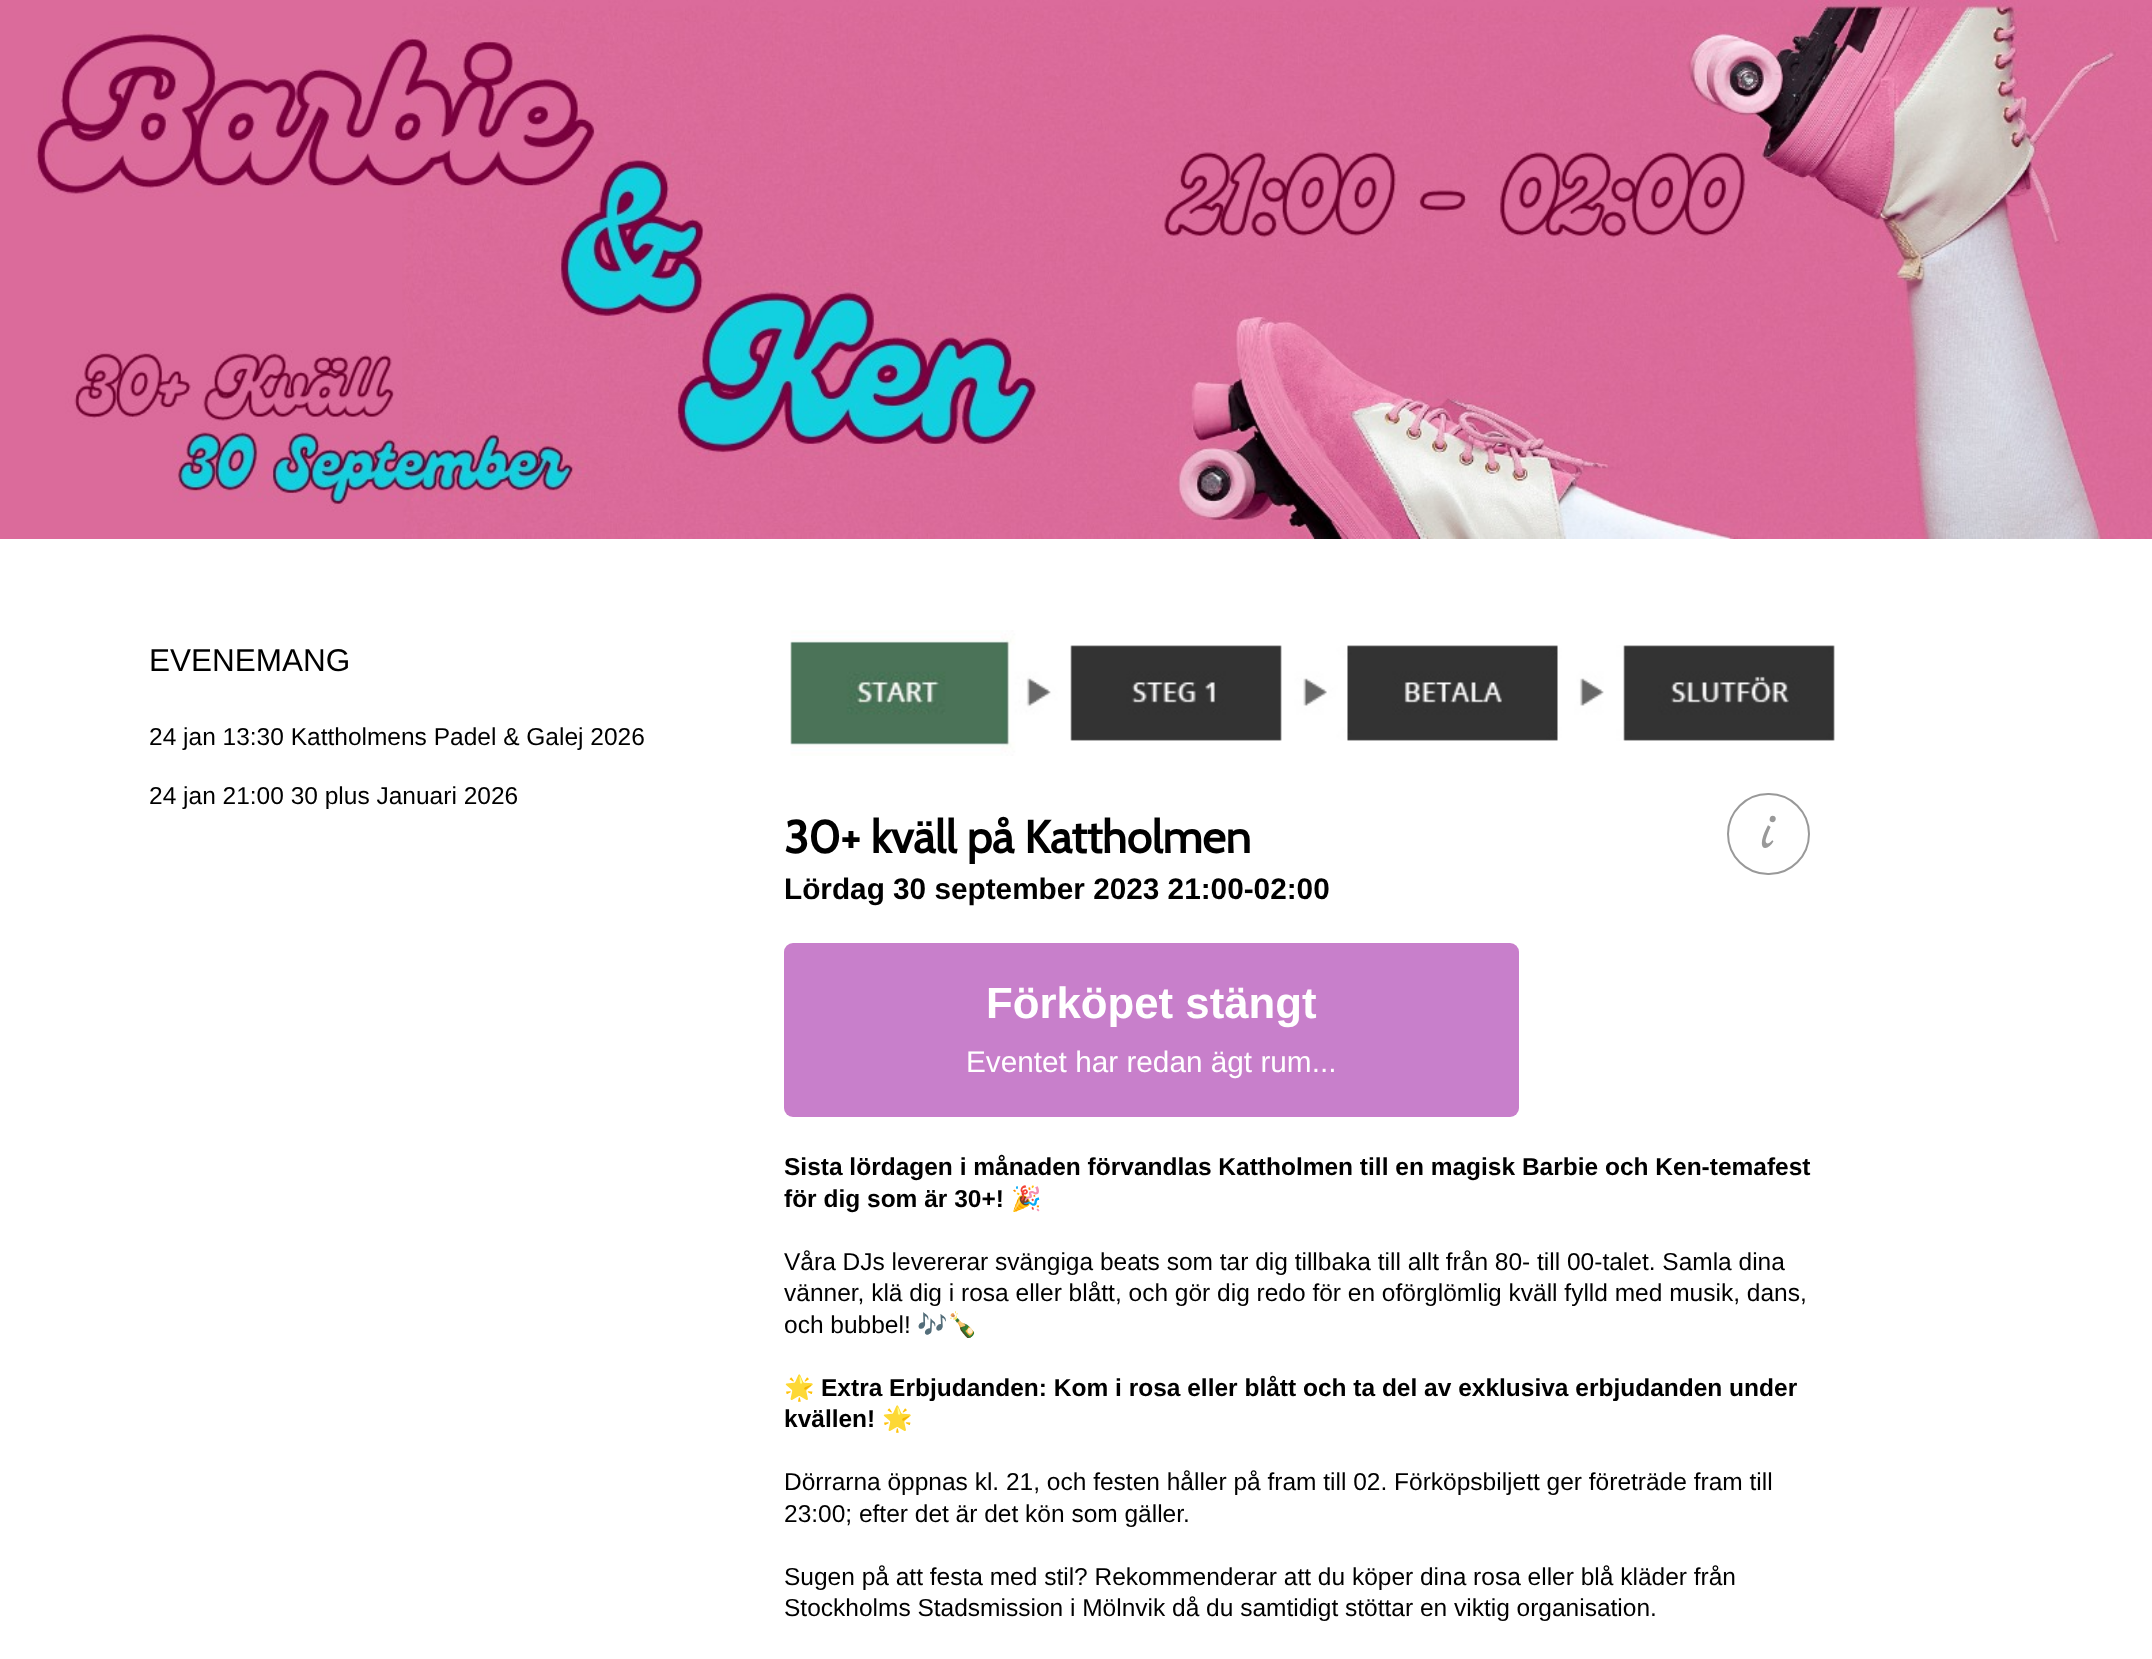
<!DOCTYPE html>
<meta charset="utf-8">
<style>body { margin: 0 } canvas { display: block }</style>
<canvas id="canvas" width="2152" height="1659"></canvas>
<script type="module">
  const canvas = document.getElementById("canvas");
  const ctx = canvas.getContext("2d");
  ctx.miterLimit = 4;
  ctx.fontKerning = "normal";
  async function loadImage(src) {
    const img = new Image();
    img.src = src;
    await img.decode();
    return img;
  }

  ctx.fillStyle = "#ffffff";
  ctx.fillRect(0, 0, 2152, 1659);
  ctx.drawImage(await loadImage("img1.png"), 0, 0, 2152, 539);
  ctx.font = "31.5px Liberation Sans";
  ctx.fillStyle = "#000000";
  ctx.fillText("EVENEMANG", 149, 671);
  ctx.font = "24.5px Liberation Sans";
  ctx.fillText("24 jan 13:30 Kattholmens Padel & Galej 2026", 149, 745);
  ctx.fillText("24 jan 21:00 30 plus Januari 2026", 149, 804);
  ctx.drawImage(await loadImage("img2.png"), 1036, 645, 799, 96);
  ctx.drawImage(await loadImage("img3.png"), 790, 630, 246, 126);
  ctx.font = "bold 45.5px Cabin";
  ctx.fillText("30+ kväll på Kattholmen", 784, 853);
  ctx.beginPath();
  ctx.roundRect(1728, 794, 81, 80, 40);
  ctx.strokeStyle = "#999999";
  ctx.lineWidth = 2;
  ctx.stroke();
  ctx.font = "61px Marck Script";
  ctx.fillStyle = "#999999";
  ctx.fillText("i", 1760, 848);
  ctx.font = "bold 29.75px Liberation Sans";
  ctx.fillStyle = "#000000";
  ctx.fillText("Lördag 30 september 2023 21:00-02:00", 784, 899);
  ctx.fillStyle = "#c87fcb";
  ctx.beginPath();
  ctx.roundRect(784, 943, 735, 174, 9);
  ctx.fill();
  ctx.font = "bold 43.75px Liberation Sans";
  ctx.fillStyle = "#ffffff";
  ctx.fillText("Förköpet stängt", 986, 1018);
  ctx.font = "29.75px Liberation Sans";
  ctx.fillText("Eventet har redan ägt rum...", 966, 1072);
  ctx.font = "bold 24.5px Liberation Sans";
  ctx.fillStyle = "#000000";
  ctx.fillText("Sista lördagen i månaden förvandlas Kattholmen till en magisk Barbie och Ken-temafest", 784, 1175);
  ctx.fillText("för dig som är 30+!", 784, 1207);
  ctx.font = "bold 24.5px Noto Color Emoji";
  ctx.fillText("🎉", 1011, 1207);
  ctx.font = "24.5px Liberation Sans";
  ctx.fillText("Våra DJs levererar svängiga beats som tar dig tillbaka till allt från 80- till 00-talet. Samla dina", 784, 1270);
  ctx.fillText("vänner, klä dig i rosa eller blått, och gör dig redo för en oförglömlig kväll fylld med musik, dans,", 784, 1301);
  ctx.fillText("och bubbel!", 784, 1333);
  ctx.font = "24.5px Noto Color Emoji";
  ctx.fillText("🎶🍾", 917, 1333);
  ctx.font = "bold 24.5px Noto Color Emoji";
  ctx.fillText("🌟", 784, 1396);
  ctx.font = "bold 24.5px Liberation Sans";
  ctx.fillText("Extra Erbjudanden: Kom i rosa eller blått och ta del av exklusiva erbjudanden under", 821, 1396);
  ctx.fillText("kvällen!", 784, 1427);
  ctx.font = "bold 24.5px Noto Color Emoji";
  ctx.fillText("🌟", 882, 1427);
  ctx.font = "24.5px Liberation Sans";
  ctx.fillText("Dörrarna öppnas kl. 21, och festen håller på fram till 02. Förköpsbiljett ger företräde fram till", 784, 1490);
  ctx.fillText("23:00; efter det är det kön som gäller.", 784, 1522);
  ctx.fillText("Sugen på att festa med stil? Rekommenderar att du köper dina rosa eller blå kläder från", 784, 1585);
  ctx.fillText("Stockholms Stadsmission i Mölnvik då du samtidigt stöttar en viktig organisation.", 784, 1616);
</script>
